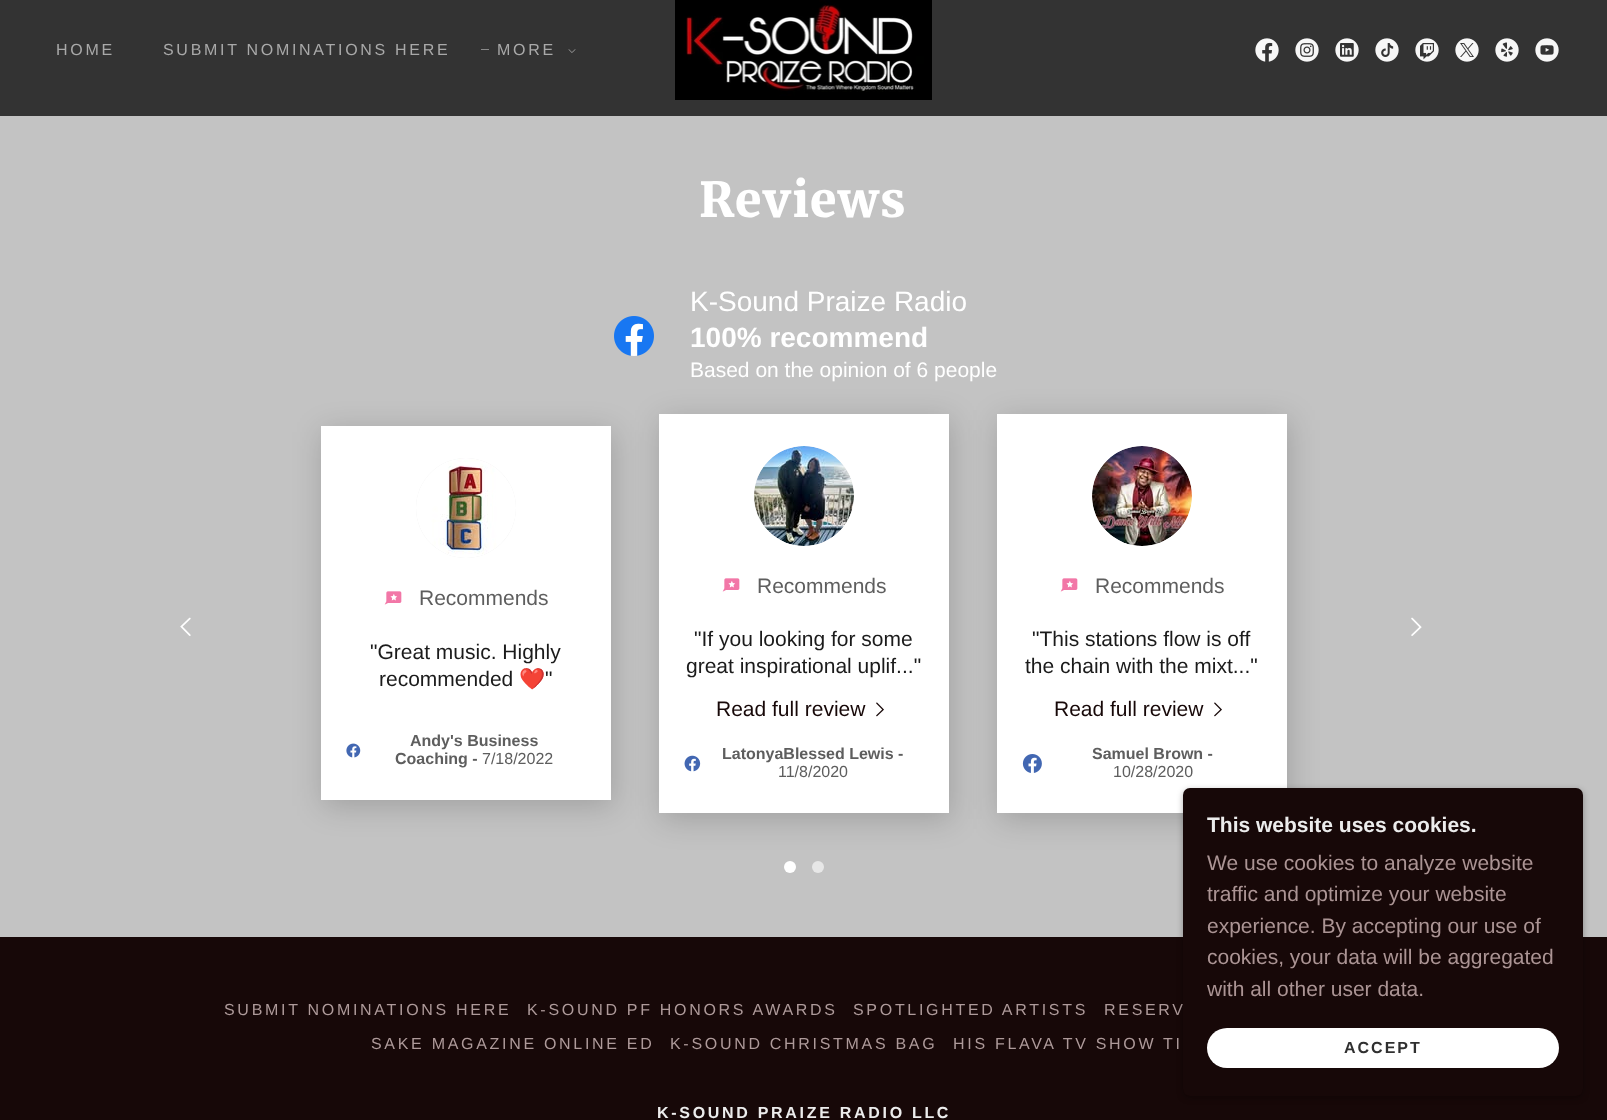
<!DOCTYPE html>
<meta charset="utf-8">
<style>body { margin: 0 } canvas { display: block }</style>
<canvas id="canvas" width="1607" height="1120"></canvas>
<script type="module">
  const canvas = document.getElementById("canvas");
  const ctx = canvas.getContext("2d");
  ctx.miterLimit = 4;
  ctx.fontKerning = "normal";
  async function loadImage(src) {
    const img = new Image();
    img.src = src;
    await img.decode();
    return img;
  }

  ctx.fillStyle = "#170808";
  ctx.fillRect(0, 0, 1607, 1120);
  ctx.fillStyle = "#333333";
  ctx.fillRect(0, 0, 1607, 116);
  ctx.letterSpacing = "2.7px";
  ctx.font = "16px Liberation Sans";
  ctx.fillStyle = "#a9a9a9";
  ctx.fillText("HOME", 56, 55);
  ctx.fillText("SUBMIT NOMINATIONS HERE", 163, 55);
  ctx.fillStyle = "#898989";
  ctx.fillRect(481, 49, 8, 1);
  ctx.fillStyle = "#a9a9a9";
  ctx.fillText("MORE", 497, 55);
  ctx.drawImage(await loadImage("img1.png"), 568, 49, 8, 4);
  ctx.drawImage(await loadImage("img2.png"), 675, 0, 257, 100);
  ctx.drawImage(await loadImage("img3.png"), 1255, 38, 24, 24);
  ctx.drawImage(await loadImage("img4.png"), 1295, 38, 24, 24);
  ctx.drawImage(await loadImage("img5.png"), 1335, 38, 24, 24);
  ctx.drawImage(await loadImage("img6.png"), 1375, 38, 24, 24);
  ctx.drawImage(await loadImage("img7.png"), 1415, 38, 24, 24);
  ctx.drawImage(await loadImage("img8.png"), 1455, 38, 24, 24);
  ctx.drawImage(await loadImage("img9.png"), 1495, 38, 24, 24);
  ctx.drawImage(await loadImage("img10.png"), 1535, 38, 24, 24);
  ctx.fillStyle = "#c3c3c3";
  ctx.fillRect(0, 116, 1607, 821);
  ctx.letterSpacing = "1px";
  ctx.font = "300 48px Merriweather";
  ctx.fillStyle = "#ffffff";
  ctx.fillText("Reviews", 699, 217);
  ctx.drawImage(await loadImage("img11.png"), 614, 316, 40, 40);
  ctx.letterSpacing = "0px";
  ctx.font = "28px Liberation Sans";
  ctx.fillText("K-Sound Praize Radio", 690, 311);
  ctx.font = "bold 28px Liberation Sans";
  ctx.fillText("100% recommend", 690, 347);
  ctx.font = "21px Liberation Sans";
  ctx.fillText("Based on the opinion of 6 people", 690, 377);
  ctx.drawImage(await loadImage("img12.png"), 180, 617, 11, 19);
  ctx.fillStyle = "rgba(0, 0, 0, 0.18)";
  ctx.filter = "blur(15px)";
  ctx.beginPath();
  ctx.rect(323, 432, 290, 374);
  ctx.fill();
  ctx.filter = "none";
  ctx.fillStyle = "#ffffff";
  ctx.fillRect(321, 426, 290, 374);
  ctx.fillStyle = "#f3f3f3";
  ctx.beginPath();
  ctx.arc(466, 508, 50, 0, Math.PI * 2);
  ctx.fill();
  ctx.drawImage(await loadImage("img13.png"), 416, 458, 100, 100);
  ctx.drawImage(await loadImage("img14.png"), 384, 591, 18, 14);
  ctx.fillStyle = "#5e5e5e";
  ctx.fillText("Recommends", 419, 605);
  ctx.fillStyle = "#1b1b1b";
  ctx.fillText("\"Great music. Highly", 370, 659);
  ctx.fillText("recommended", 379, 686);
  ctx.font = "21px Noto Color Emoji";
  ctx.fillText("❤️", 519, 686);
  ctx.font = "21px Liberation Sans";
  ctx.fillText("\"", 545, 686);
  ctx.drawImage(await loadImage("img15.png"), 346, 743, 15, 15);
  ctx.font = "bold 16px Liberation Sans";
  ctx.fillStyle = "#5e5e5e";
  ctx.fillText("Andy's Business", 410, 746);
  ctx.fillText("Coaching -", 395, 764);
  ctx.font = "16px Liberation Sans";
  ctx.fillText("7/18/2022", 482, 764);
  ctx.fillStyle = "#ffffff";
  ctx.beginPath();
  ctx.arc(790, 867, 6, 0, Math.PI * 2);
  ctx.fill();
  ctx.fillStyle = "rgba(0, 0, 0, 0.18)";
  ctx.filter = "blur(15px)";
  ctx.beginPath();
  ctx.rect(661, 420, 290, 399);
  ctx.fill();
  ctx.filter = "none";
  ctx.fillStyle = "#ffffff";
  ctx.fillRect(659, 414, 290, 399);
  ctx.fillStyle = "#f3f3f3";
  ctx.beginPath();
  ctx.arc(804, 496, 50, 0, Math.PI * 2);
  ctx.fill();
  ctx.drawImage(await loadImage("img16.png"), 754, 446, 100, 100);
  ctx.drawImage(await loadImage("img14.png"), 722, 578, 18, 14);
  ctx.font = "21px Liberation Sans";
  ctx.fillStyle = "#5e5e5e";
  ctx.fillText("Recommends", 757, 593);
  ctx.fillStyle = "#1b1b1b";
  ctx.fillText("\"If you looking for some", 694, 646);
  ctx.fillText("great inspirational uplif...\"", 686, 673);
  ctx.fillStyle = "#170808";
  ctx.fillText("Read full review", 716, 716);
  ctx.drawImage(await loadImage("img17.png"), 876, 702, 8, 15);
  ctx.drawImage(await loadImage("img18.png"), 684, 755, 17, 17);
  ctx.font = "bold 16px Liberation Sans";
  ctx.fillStyle = "#5e5e5e";
  ctx.fillText("LatonyaBlessed Lewis -", 722, 759);
  ctx.font = "16px Liberation Sans";
  ctx.fillText("11/8/2020", 778, 777);
  ctx.fillStyle = "rgba(0, 0, 0, 0.18)";
  ctx.filter = "blur(15px)";
  ctx.beginPath();
  ctx.rect(999, 420, 290, 399);
  ctx.fill();
  ctx.filter = "none";
  ctx.fillStyle = "#ffffff";
  ctx.fillRect(997, 414, 290, 399);
  ctx.fillStyle = "#f3f3f3";
  ctx.beginPath();
  ctx.arc(1142, 496, 50, 0, Math.PI * 2);
  ctx.fill();
  ctx.drawImage(await loadImage("img19.png"), 1092, 446, 100, 100);
  ctx.drawImage(await loadImage("img14.png"), 1060, 578, 18, 14);
  ctx.font = "21px Liberation Sans";
  ctx.fillStyle = "#5e5e5e";
  ctx.fillText("Recommends", 1095, 593);
  ctx.fillStyle = "#1b1b1b";
  ctx.fillText("\"This stations flow is off", 1032, 646);
  ctx.fillText("the chain with the mixt...\"", 1025, 673);
  ctx.fillStyle = "#170808";
  ctx.fillText("Read full review", 1054, 716);
  ctx.drawImage(await loadImage("img17.png"), 1214, 702, 8, 15);
  ctx.drawImage(await loadImage("img20.png"), 1022, 754, 20, 19);
  ctx.font = "bold 16px Liberation Sans";
  ctx.fillStyle = "#5e5e5e";
  ctx.fillText("Samuel Brown -", 1092, 759);
  ctx.font = "16px Liberation Sans";
  ctx.fillText("10/28/2020", 1113, 777);
  ctx.drawImage(await loadImage("img21.png"), 1411, 617, 11, 19);
  ctx.fillStyle = "#e7e7e7";
  ctx.beginPath();
  ctx.arc(818, 867, 6, 0, Math.PI * 2);
  ctx.fill();
  ctx.letterSpacing = "2.7px";
  ctx.fillStyle = "#ae9a9a";
  ctx.fillText("SUBMIT NOMINATIONS HERE", 224, 1015);
  ctx.fillText("K-SOUND PF HONORS AWARDS", 527, 1015);
  ctx.fillText("SPOTLIGHTED ARTISTS", 853, 1015);
  ctx.fillText("RESERV", 1104, 1015);
  ctx.fillText("SAKE MAGAZINE ONLINE ED", 371, 1049);
  ctx.fillText("K-SOUND CHRISTMAS BAG", 670, 1049);
  ctx.fillText("HIS FLAVA TV SHOW TI", 953, 1049);
  ctx.font = "bold 16px Liberation Sans";
  ctx.fillStyle = "#ececec";
  ctx.fillText("K-SOUND PRAIZE RADIO LLC", 657, 1118);
  ctx.fillStyle = "rgba(0, 0, 0, 0.3)";
  ctx.filter = "blur(3px)";
  ctx.beginPath();
  ctx.roundRect(1183, 790, 400, 308, 7);
  ctx.fill();
  ctx.filter = "none";
  ctx.fillStyle = "#170808";
  ctx.beginPath();
  ctx.roundRect(1183, 788, 400, 308, 7);
  ctx.fill();
  ctx.letterSpacing = "0px";
  ctx.font = "bold 21px Liberation Sans";
  ctx.fillStyle = "#ececec";
  ctx.fillText("This website uses cookies.", 1207, 832);
  ctx.font = "21px Liberation Sans";
  ctx.fillStyle = "#ab9494";
  ctx.fillText("We use cookies to analyze website", 1207, 870);
  ctx.fillText("traffic and optimize your website", 1207, 901);
  ctx.fillText("experience. By accepting our use of", 1207, 933);
  ctx.fillText("cookies, your data will be aggregated", 1207, 964);
  ctx.fillText("with all other user data.", 1207, 996);
  ctx.fillStyle = "#ffffff";
  ctx.beginPath();
  ctx.roundRect(1207, 1028, 352, 40, 20);
  ctx.fill();
  ctx.letterSpacing = "2px";
  ctx.font = "bold 16px Liberation Sans";
  ctx.fillStyle = "#303030";
  ctx.fillText("ACCEPT", 1344, 1053);
</script>
